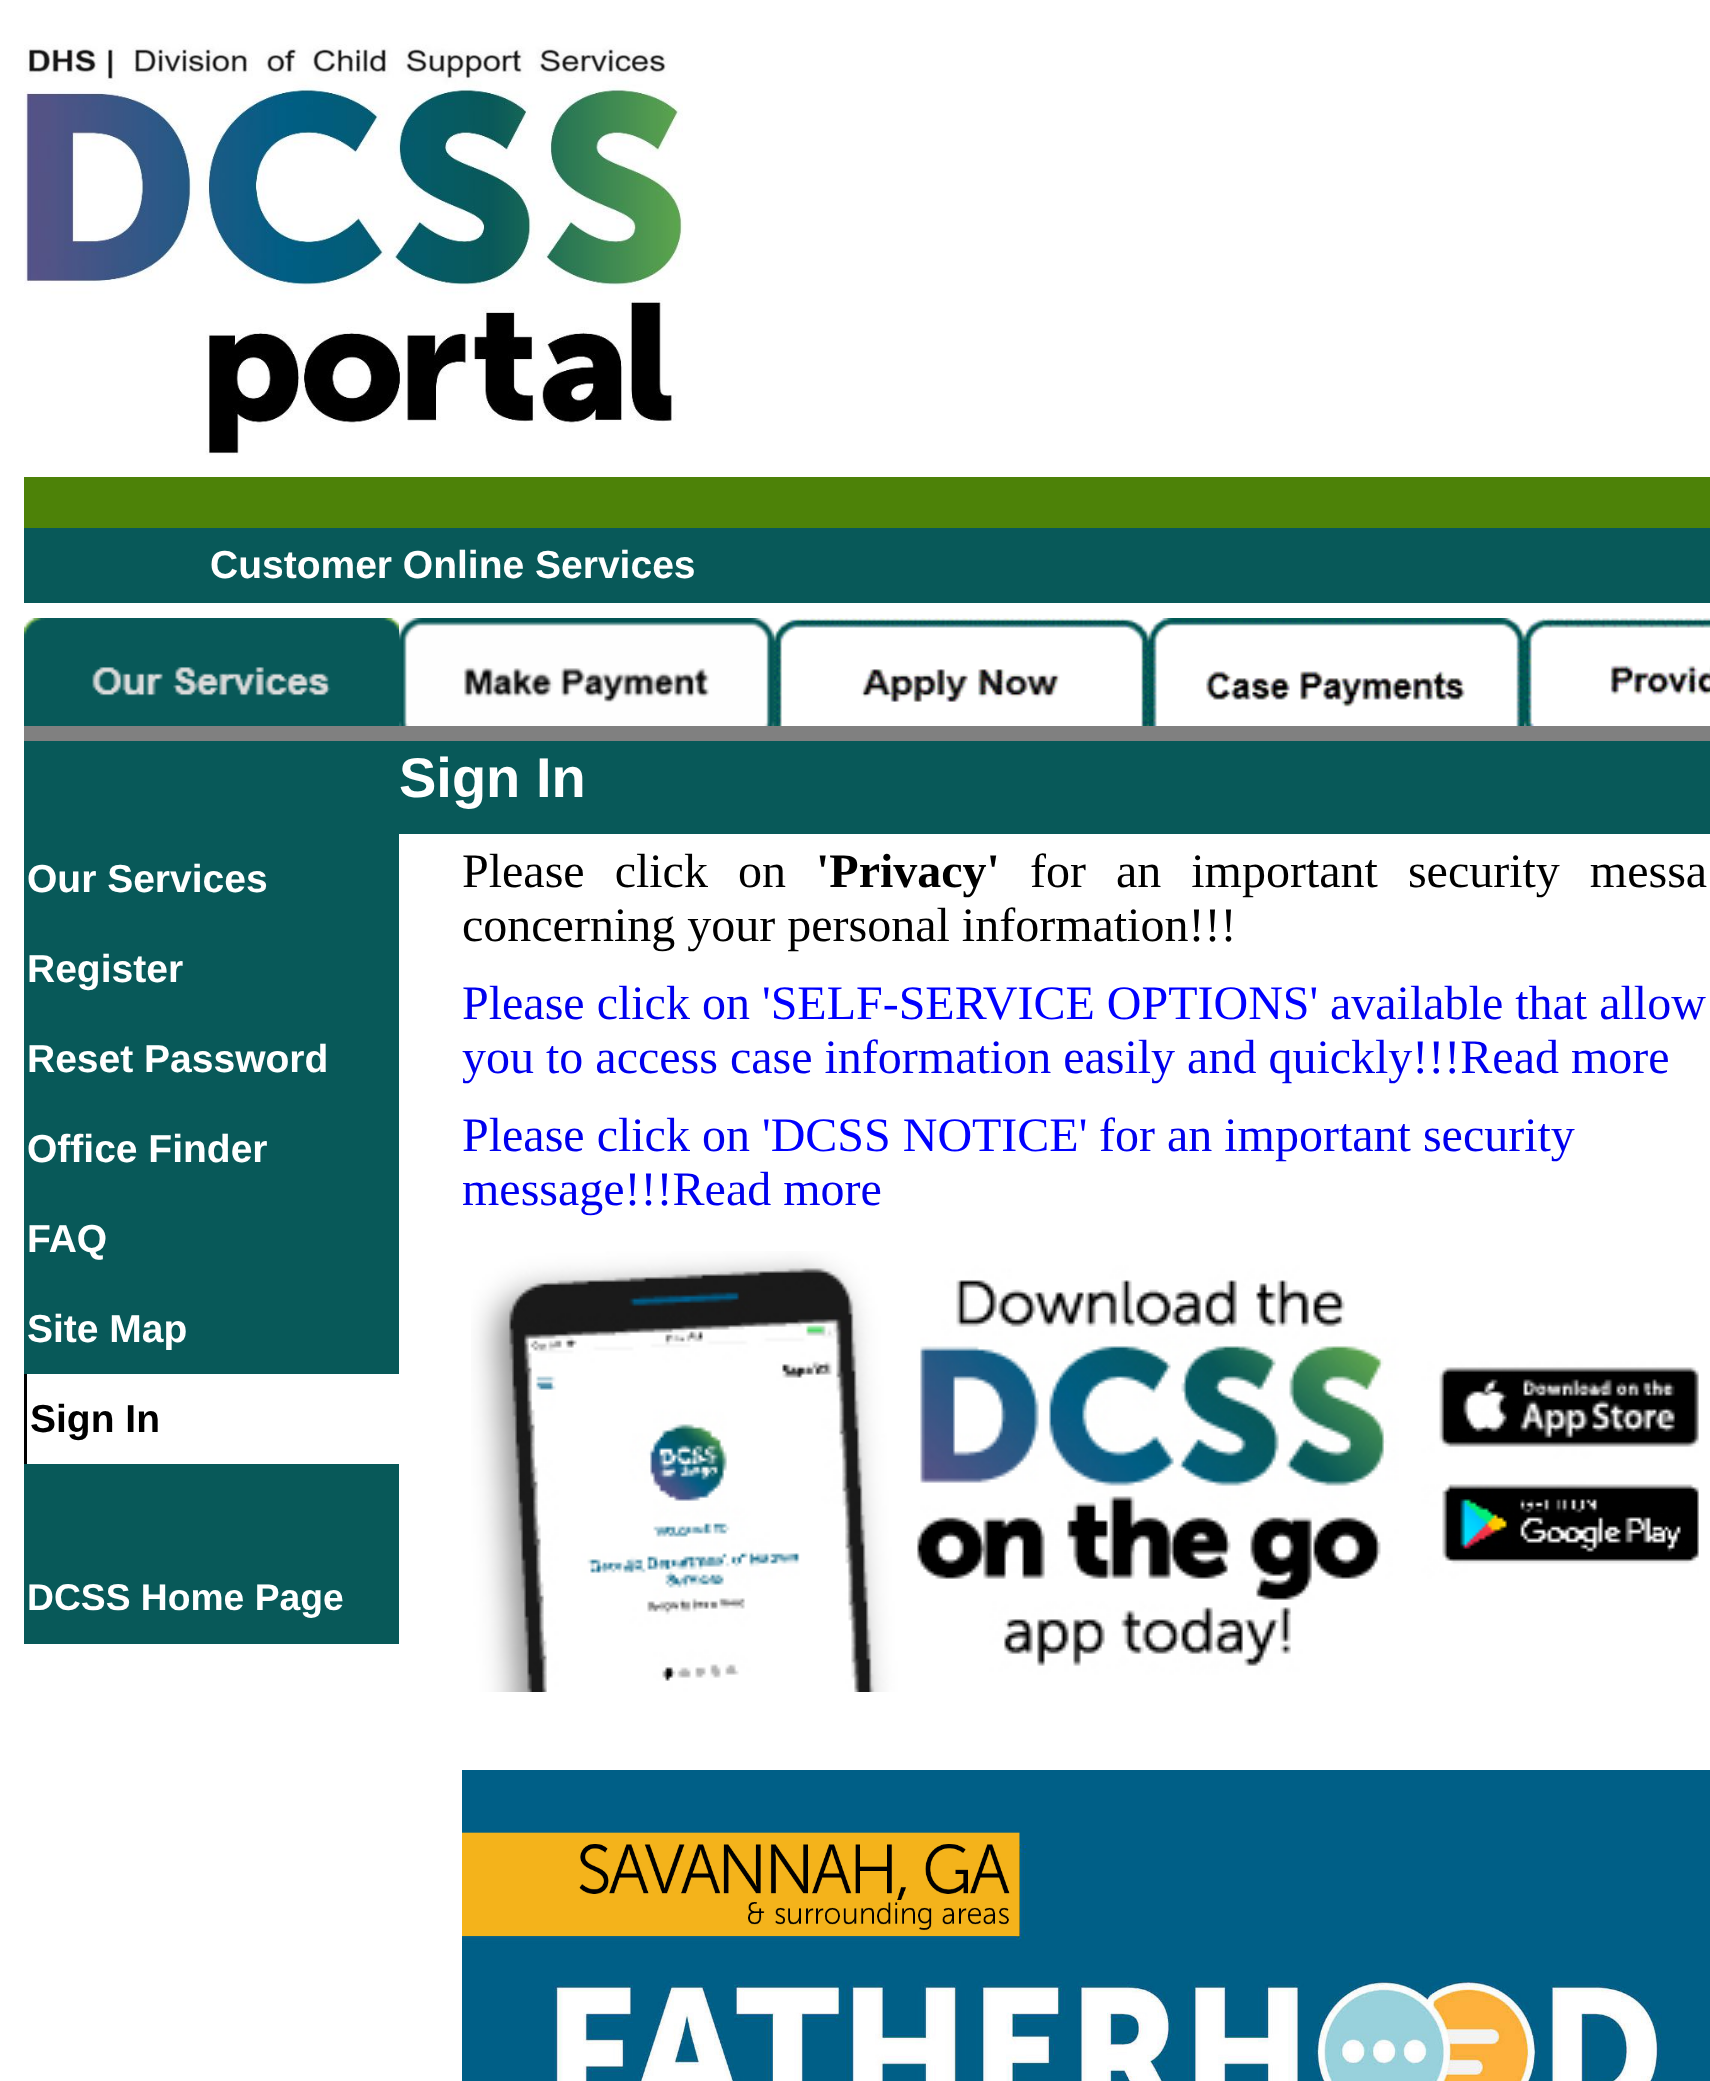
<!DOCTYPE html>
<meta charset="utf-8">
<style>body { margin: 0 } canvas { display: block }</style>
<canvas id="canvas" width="1710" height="2081"></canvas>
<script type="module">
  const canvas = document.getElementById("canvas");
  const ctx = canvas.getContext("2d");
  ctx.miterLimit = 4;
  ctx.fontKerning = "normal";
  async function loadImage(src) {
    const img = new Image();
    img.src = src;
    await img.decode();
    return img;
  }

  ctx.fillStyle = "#ffffff";
  ctx.fillRect(0, 0, 1710, 2081);
  ctx.drawImage(await loadImage("img1.png"), 24, 44, 659, 411);
  ctx.fillStyle = "#4d8208";
  ctx.fillRect(24, 477, 1686, 51);
  ctx.fillStyle = "#085959";
  ctx.fillRect(24, 528, 1686, 75);
  ctx.font = "bold 39px Liberation Sans";
  ctx.fillStyle = "#ffffff";
  ctx.fillText("Customer Online Services", 210, 578);
  ctx.fillStyle = "#085959";
  ctx.fillRect(24, 696, 375, 30);
  ctx.drawImage(await loadImage("img2.png"), 24, 618, 375, 78);
  ctx.drawImage(await loadImage("img3.png"), 399, 618, 375, 108);
  ctx.drawImage(await loadImage("img4.png"), 774, 618, 375, 108);
  ctx.drawImage(await loadImage("img5.png"), 1149, 618, 375, 108);
  ctx.drawImage(await loadImage("img6.png"), 1524, 618, 186, 108);
  ctx.fillRect(24, 741, 1686, 93);
  ctx.fillStyle = "#808080";
  ctx.fillRect(24, 726, 1686, 15);
  ctx.font = "bold 56px Liberation Sans";
  ctx.fillStyle = "#ffffff";
  ctx.fillText("Sign In", 399, 797);
  ctx.fillStyle = "#085959";
  ctx.fillRect(24, 834, 375, 540);
  ctx.font = "bold 39px Liberation Sans";
  ctx.fillStyle = "#ffffff";
  ctx.fillText("Our Services", 27, 892);
  ctx.fillText("Register", 27, 982);
  ctx.fillText("Reset Password", 27, 1072);
  ctx.fillText("Office Finder", 27, 1162);
  ctx.fillText("FAQ", 27, 1252);
  ctx.fillText("Site Map", 27, 1342);
  ctx.fillStyle = "#000000";
  ctx.fillRect(24, 1374, 3, 90);
  ctx.fillText("Sign In", 30, 1432);
  ctx.fillStyle = "#085959";
  ctx.fillRect(24, 1464, 375, 180);
  ctx.font = "bold 37.25px Liberation Sans";
  ctx.fillStyle = "#ffffff";
  ctx.fillText("DCSS Home Page", 27, 1610);
  ctx.wordSpacing = "18px";
  ctx.font = "48px Liberation Serif";
  ctx.fillStyle = "#000000";
  ctx.fillText("Please click on", 462, 887);
  ctx.wordSpacing = "0px";
  ctx.font = "bold 48px Liberation Serif";
  ctx.fillText("'Privacy'", 816, 887);
  ctx.wordSpacing = "18px";
  ctx.font = "48px Liberation Serif";
  ctx.fillText("for an important security messa", 1030, 887);
  ctx.wordSpacing = "0px";
  ctx.fillText("concerning your personal information!!!", 462, 941);
  ctx.fillStyle = "#0000ee";
  ctx.fillText("Please click on", 462, 1019);
  ctx.fillStyle = "#0000ff";
  ctx.fillText("'SELF-SERVICE OPTIONS'", 762, 1019);
  ctx.fillStyle = "#0000ee";
  ctx.fillText("available that allow", 1330, 1019);
  ctx.fillText("you to access case information easily and quickly!!!Read more", 462, 1073);
  ctx.fillText("Please click on", 462, 1151);
  ctx.fillStyle = "#0000ff";
  ctx.fillText("'DCSS NOTICE'", 762, 1151);
  ctx.fillStyle = "#0000ee";
  ctx.fillText("for an important security", 1099, 1151);
  ctx.fillText("message!!!Read more", 462, 1205);
  ctx.drawImage(await loadImage("img7.png"), 471, 1251, 1228, 441);
  ctx.drawImage(await loadImage("img8.png"), 462, 1770, 1248, 311);
</script>
